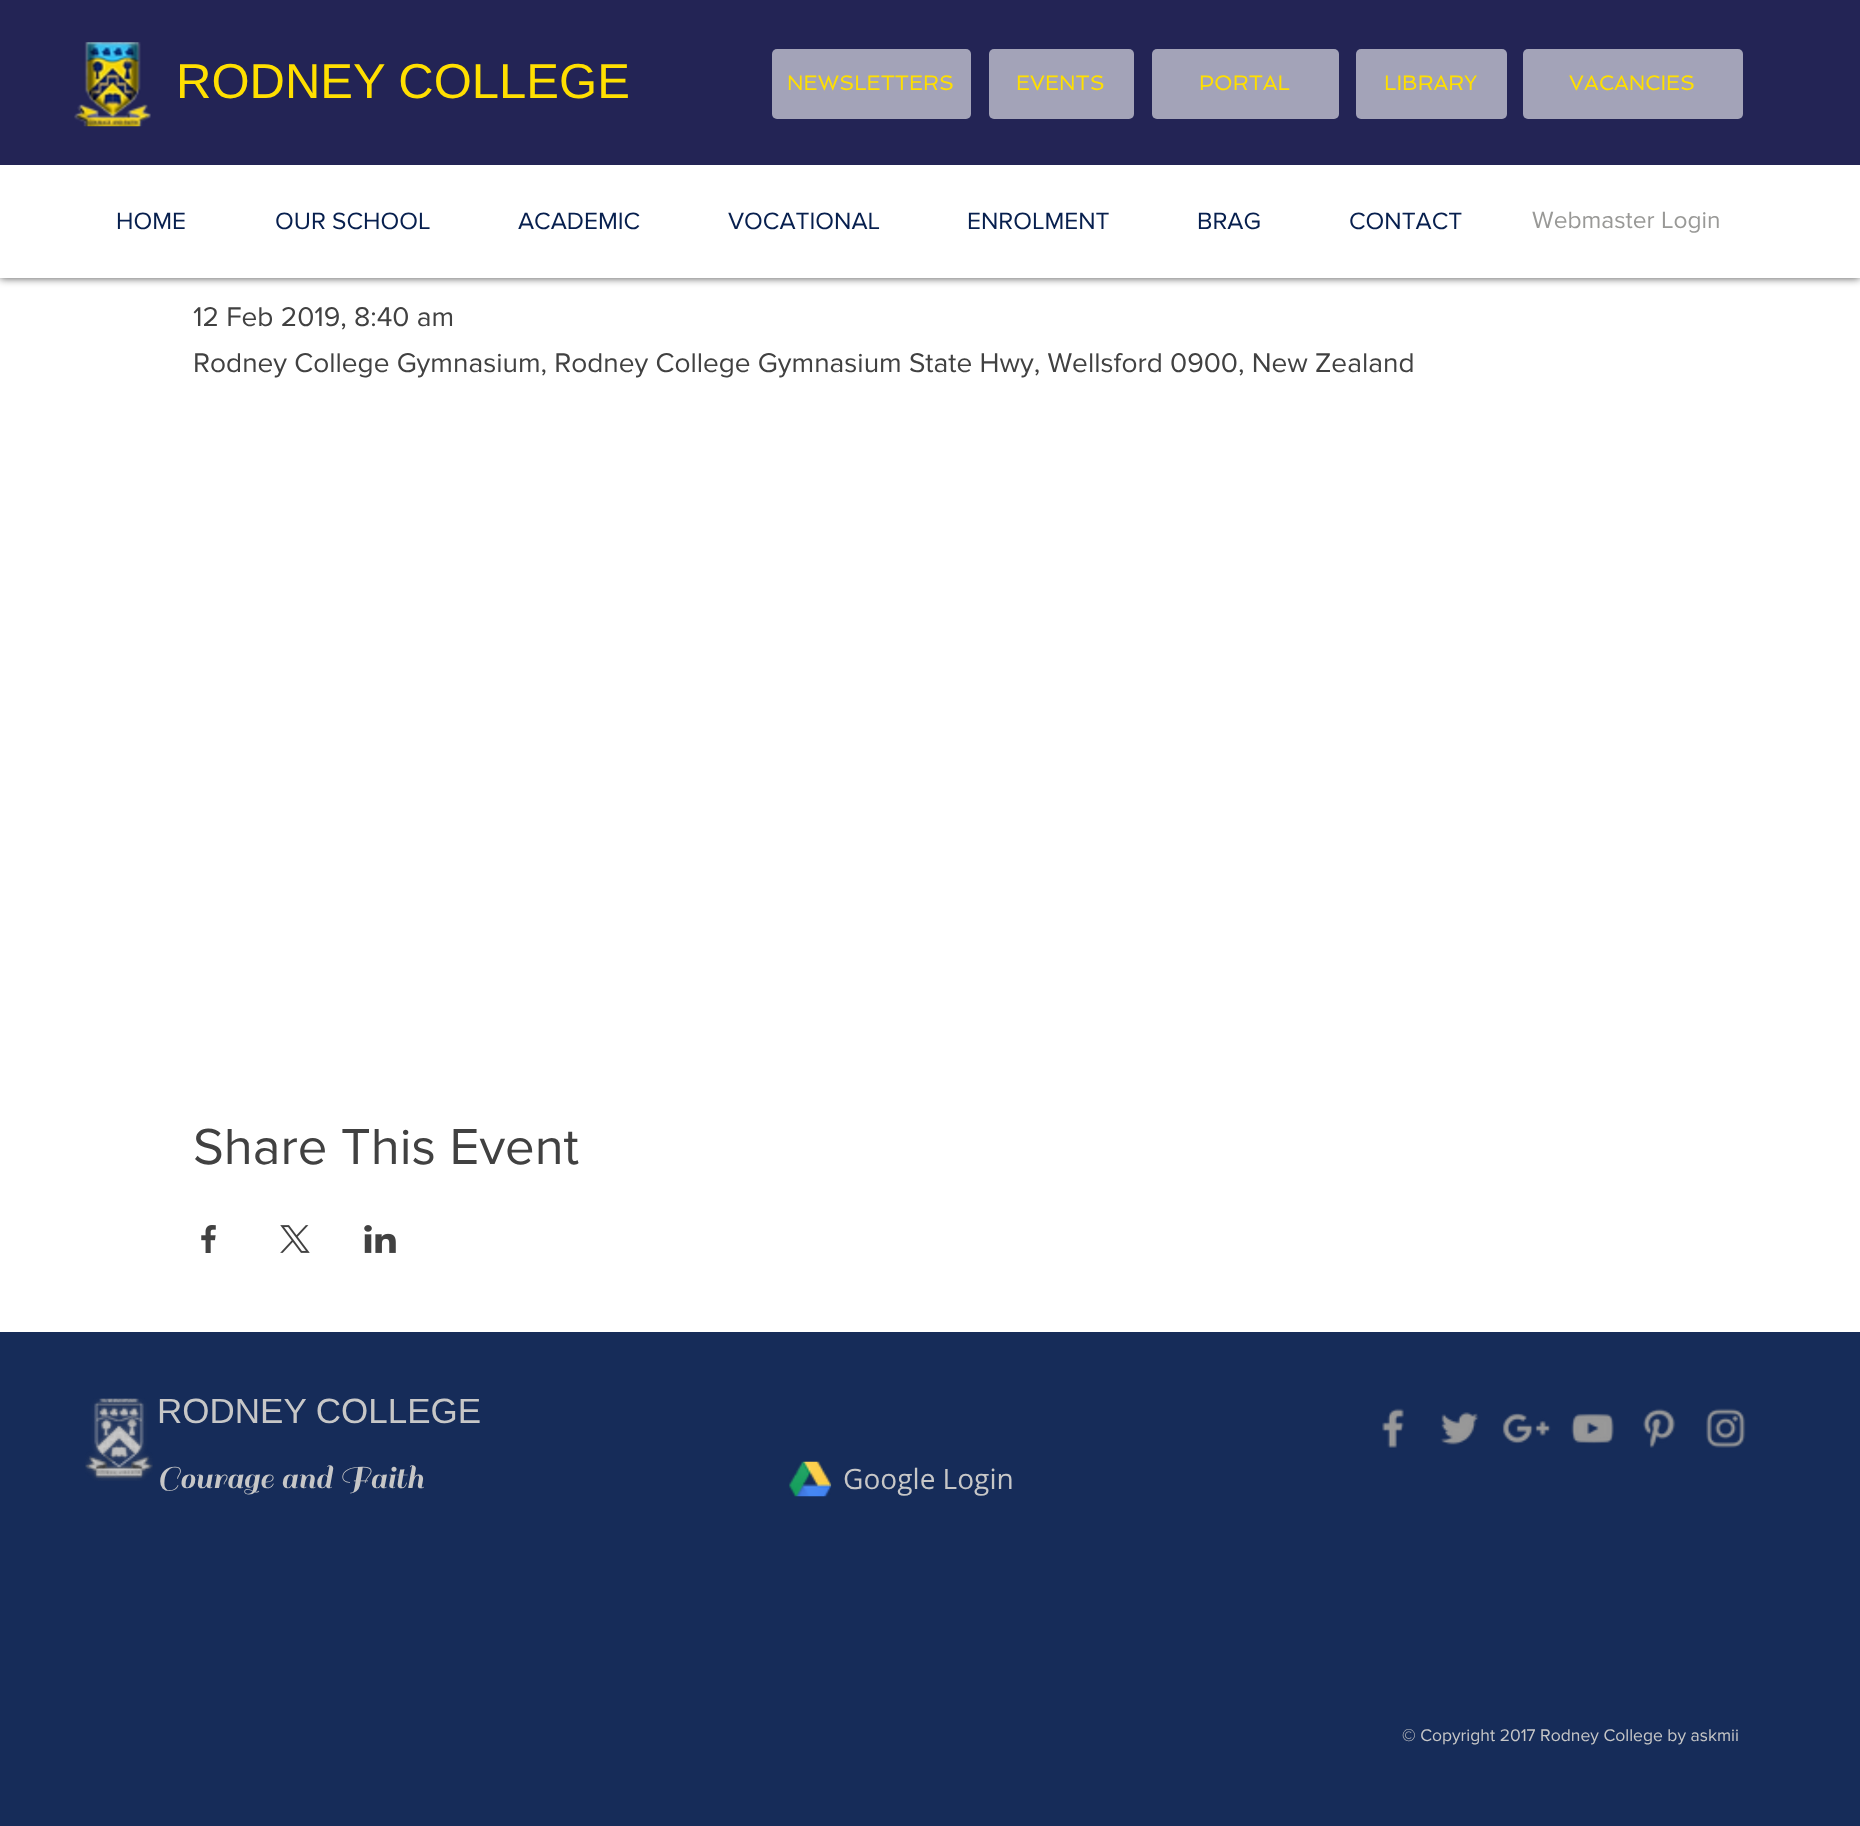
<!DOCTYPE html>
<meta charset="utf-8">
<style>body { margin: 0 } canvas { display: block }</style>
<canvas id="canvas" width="1860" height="1826"></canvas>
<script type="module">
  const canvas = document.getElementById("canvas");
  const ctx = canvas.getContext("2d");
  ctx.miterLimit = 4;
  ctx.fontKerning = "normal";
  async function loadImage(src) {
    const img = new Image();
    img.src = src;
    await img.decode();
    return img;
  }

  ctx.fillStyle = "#ffffff";
  ctx.fillRect(0, 0, 1860, 1826);
  ctx.fillStyle = "rgba(0, 0, 0, 0.7)";
  ctx.filter = "blur(4.5px)";
  ctx.beginPath();
  ctx.rect(0, 0, 1860, 278);
  ctx.fill();
  ctx.filter = "none";
  ctx.fillStyle = "#ffffff";
  ctx.fillRect(0, 165, 1860, 113);
  ctx.fillStyle = "#232455";
  ctx.fillRect(0, 0, 1860, 165);
  ctx.drawImage(await loadImage("img1.png"), 74, 42, 77, 85);
  ctx.font = "49px Liberation Sans";
  ctx.fillStyle = "#ffdf00";
  ctx.fillText("RODNEY COLLEGE", 176, 98);
  ctx.fillStyle = "#a3a3b8";
  ctx.beginPath();
  ctx.roundRect(772, 49, 199, 70, 5);
  ctx.fill();
  ctx.font = "21px Spinnaker";
  ctx.fillStyle = "#ffdf00";
  ctx.fillText("NEWSLETTERS", 787, 90);
  ctx.fillStyle = "#a3a3b8";
  ctx.beginPath();
  ctx.roundRect(989, 49, 145, 70, 5);
  ctx.fill();
  ctx.fillStyle = "#ffdf00";
  ctx.fillText("EVENTS", 1016, 90);
  ctx.fillStyle = "#a3a3b8";
  ctx.beginPath();
  ctx.roundRect(1152, 49, 187, 70, 5);
  ctx.fill();
  ctx.fillStyle = "#ffdf00";
  ctx.fillText("PORTAL", 1199, 90);
  ctx.fillStyle = "#a3a3b8";
  ctx.beginPath();
  ctx.roundRect(1356, 49, 151, 70, 5);
  ctx.fill();
  ctx.fillStyle = "#ffdf00";
  ctx.fillText("LIBRARY", 1384, 90);
  ctx.fillStyle = "#a3a3b8";
  ctx.beginPath();
  ctx.roundRect(1523, 49, 220, 70, 5);
  ctx.fill();
  ctx.fillStyle = "#ffdf00";
  ctx.fillText("VACANCIES", 1569, 90);
  ctx.font = "24.5px 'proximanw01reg'";
  ctx.fillStyle = "#071f4e";
  ctx.fillText("HOME", 116, 229);
  ctx.fillText("OUR SCHOOL", 275, 229);
  ctx.fillText("ACADEMIC", 518, 229);
  ctx.fillText("VOCATIONAL", 728, 229);
  ctx.fillText("ENROLMENT", 967, 229);
  ctx.fillText("BRAG", 1197, 229);
  ctx.fillText("CONTACT", 1349, 229);
  ctx.fillStyle = "#999997";
  ctx.fillText("Webmaster Login", 1532, 228);
  ctx.font = "28px 'proximanw01reg'";
  ctx.fillStyle = "#414141";
  ctx.fillText("12 Feb 2019, 8:40 am", 193, 326);
  ctx.fillText("Rodney College Gymnasium, Rodney College Gymnasium State Hwy, Wellsford 0900, New Zealand", 193, 372);
  ctx.font = "52.5px 'proximanw01reg'";
  ctx.fillText("Share This Event", 193, 1164);
  ctx.drawImage(await loadImage("img2.png"), 201, 1225, 15, 28);
  ctx.drawImage(await loadImage("img3.png"), 280, 1225, 30, 28);
  ctx.drawImage(await loadImage("img4.png"), 364, 1225, 32, 28);
  ctx.fillStyle = "#162c59";
  ctx.fillRect(0, 1332, 1860, 494);
  ctx.drawImage(await loadImage("img5.png"), 85, 1398, 68, 83);
  ctx.font = "35px Liberation Sans";
  ctx.fillStyle = "#c7c7c7";
  ctx.fillText("RODNEY COLLEGE", 157, 1423);
  ctx.drawImage(await loadImage("img6.png"), 1382, 1408, 22, 40);
  ctx.drawImage(await loadImage("img7.png"), 1440, 1412, 39, 33);
  ctx.drawImage(await loadImage("img8.png"), 1502, 1413, 49, 31);
  ctx.drawImage(await loadImage("img9.png"), 1571, 1413, 43, 31);
  ctx.drawImage(await loadImage("img10.png"), 1643, 1408, 33, 40);
  ctx.drawImage(await loadImage("img11.png"), 1706, 1408, 40, 40);
  ctx.font = "35px Sail";
  ctx.fillText("Courage and Faith", 157, 1488);
  ctx.drawImage(await loadImage("img12.png"), 789, 1461, 43, 36);
  ctx.font = "28px Open Sans";
  ctx.fillText("Google Login", 843, 1489);
  ctx.font = "17.5px 'proximanw01reg'";
  ctx.fillText("© Copyright 2017 Rodney College by askmii", 1402, 1741);
</script>
